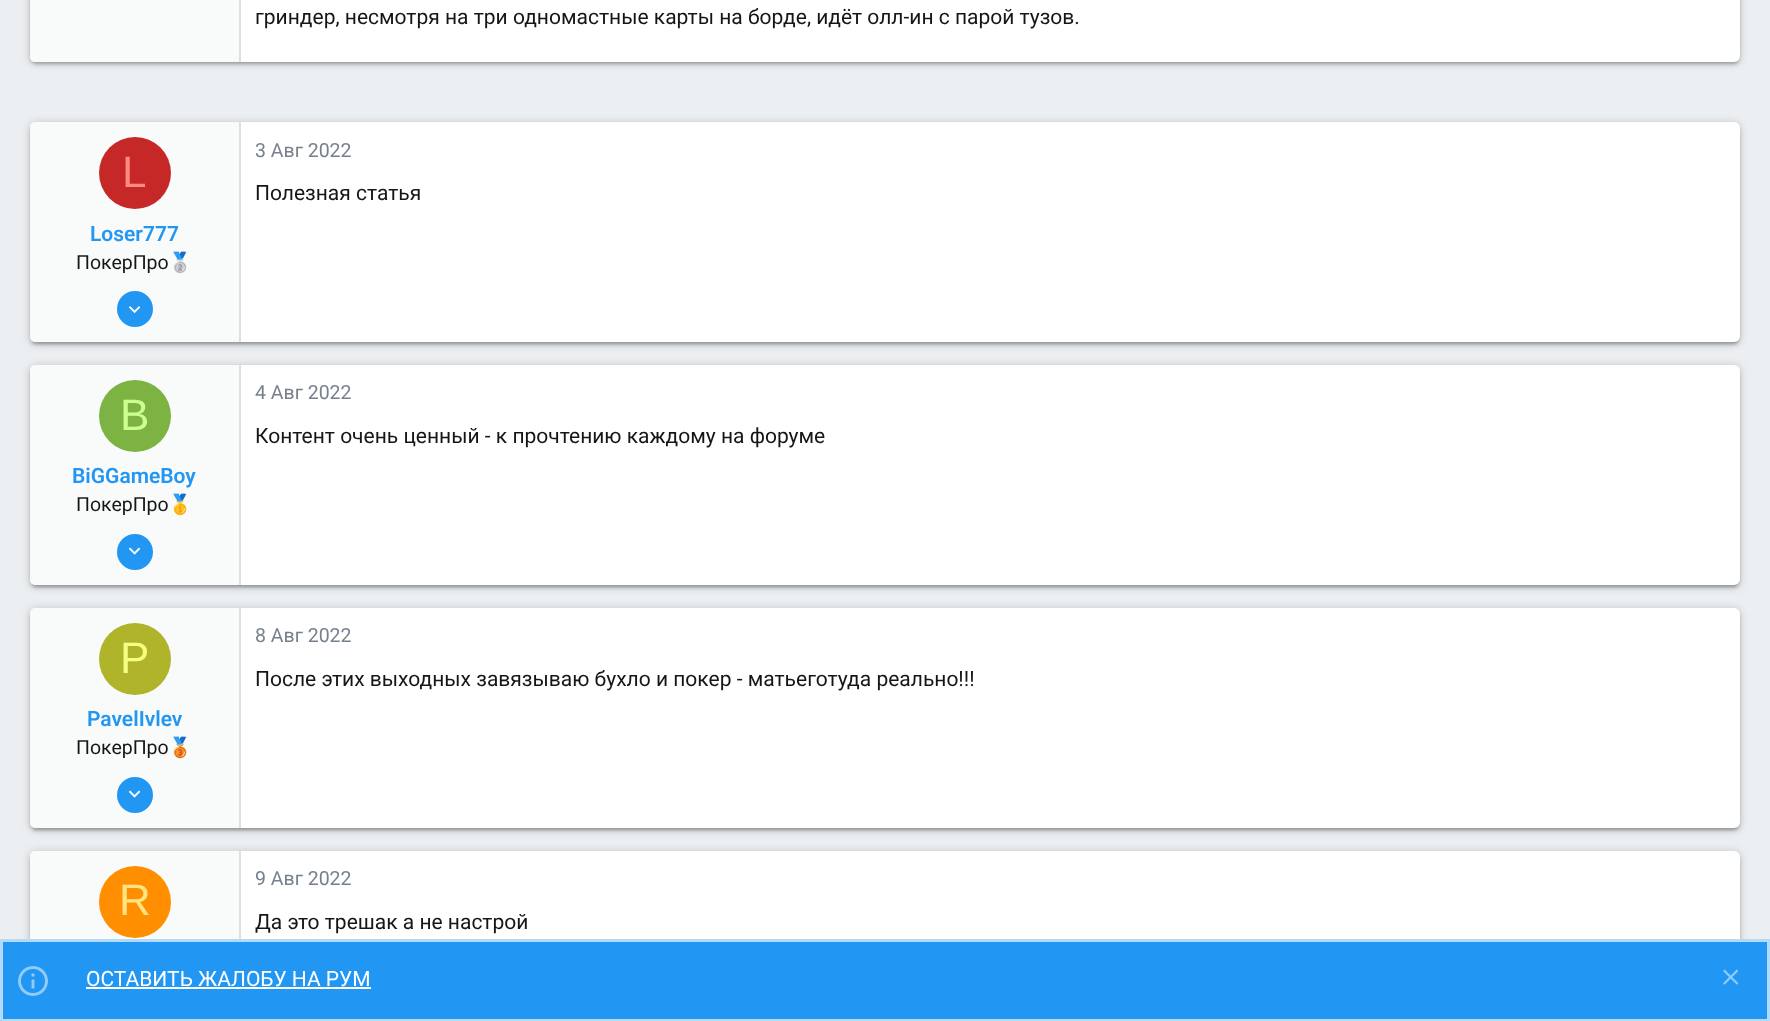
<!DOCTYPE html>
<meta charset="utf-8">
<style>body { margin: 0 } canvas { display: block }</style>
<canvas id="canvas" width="1770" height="1021"></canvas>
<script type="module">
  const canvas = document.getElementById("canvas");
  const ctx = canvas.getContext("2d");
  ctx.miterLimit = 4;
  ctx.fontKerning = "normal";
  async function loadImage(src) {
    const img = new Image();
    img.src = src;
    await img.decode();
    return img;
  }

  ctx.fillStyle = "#eceff1";
  ctx.fillRect(0, 0, 1770, 1021);
  ctx.fillStyle = "rgba(0, 0, 0, 0.2)";
  ctx.filter = "blur(4px)";
  ctx.beginPath();
  ctx.roundRect(30, -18, 1710, 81, 6);
  ctx.fill();
  ctx.filter = "none";
  ctx.fillStyle = "rgba(0, 0, 0, 0.12)";
  ctx.filter = "blur(1px)";
  ctx.beginPath();
  ctx.roundRect(33, -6, 1704, 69, 3);
  ctx.fill();
  ctx.filter = "none";
  ctx.fillStyle = "rgba(0, 0, 0, 0.14)";
  ctx.filter = "blur(1.5px)";
  ctx.beginPath();
  ctx.roundRect(30, -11, 1710, 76, 6);
  ctx.fill();
  ctx.filter = "none";
  ctx.fillStyle = "#ffffff";
  ctx.beginPath();
  ctx.roundRect(30, -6, 1710, 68, 6);
  ctx.fill();
  ctx.fillStyle = "#f9fafa";
  ctx.beginPath();
  ctx.moveTo(35, -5);
  ctx.lineTo(240, -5);
  ctx.lineTo(240, 62);
  ctx.lineTo(35, 62);
  ctx.bezierCurveTo(32, 62, 30, 60, 30, 57);
  ctx.lineTo(30, 0);
  ctx.bezierCurveTo(30, -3, 32, -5, 35, -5);
  ctx.closePath();
  ctx.fill();
  ctx.fillStyle = "#e0e0e0";
  ctx.fillRect(239, 0, 2, 62);
  ctx.font = "21px Roboto";
  ctx.fillStyle = "#141618";
  ctx.fillText("гриндер, несмотря на три одномастные карты на борде, идёт олл-ин с парой тузов.", 255, 24);
  ctx.fillStyle = "rgba(0, 0, 0, 0.2)";
  ctx.filter = "blur(4px)";
  ctx.beginPath();
  ctx.roundRect(30, 123, 1710, 221, 6);
  ctx.fill();
  ctx.filter = "none";
  ctx.fillStyle = "rgba(0, 0, 0, 0.12)";
  ctx.filter = "blur(1px)";
  ctx.beginPath();
  ctx.roundRect(33, 129, 1704, 215, 3);
  ctx.fill();
  ctx.filter = "none";
  ctx.fillStyle = "rgba(0, 0, 0, 0.14)";
  ctx.filter = "blur(1.5px)";
  ctx.beginPath();
  ctx.roundRect(30, 125, 1710, 220, 6);
  ctx.fill();
  ctx.filter = "none";
  ctx.fillStyle = "#ffffff";
  ctx.beginPath();
  ctx.roundRect(30, 122, 1710, 220, 6);
  ctx.fill();
  ctx.fillStyle = "#f9fafa";
  ctx.beginPath();
  ctx.roundRect(30, 122, 210, 220, [5, 0, 0, 5]);
  ctx.fill();
  ctx.fillStyle = "#e0e0e0";
  ctx.fillRect(239, 122, 2, 220);
  ctx.fillStyle = "#c62828";
  ctx.beginPath();
  ctx.arc(135, 173, 36, 0, Math.PI * 2);
  ctx.fill();
  ctx.font = "44px Liberation Sans";
  ctx.fillStyle = "#ff8a80";
  ctx.fillText("L", 122, 187);
  ctx.font = "600 21px Roboto";
  ctx.fillStyle = "#2196f3";
  ctx.fillText("Loser777", 90, 241);
  ctx.font = "19.5px Roboto";
  ctx.fillStyle = "#141618";
  ctx.fillText("ПокерПро", 76, 269);
  ctx.font = "19.5px Noto Color Emoji";
  ctx.fillText("🥈", 168, 269);
  ctx.fillStyle = "#2196f3";
  ctx.beginPath();
  ctx.arc(135, 309, 18, 0, Math.PI * 2);
  ctx.fill();
  ctx.drawImage(await loadImage("img1.png"), 128, 306, 13, 8);
  ctx.font = "19.5px Roboto";
  ctx.fillStyle = "#76818d";
  ctx.fillText("3 Авг 2022", 255, 157);
  ctx.font = "21px Roboto";
  ctx.fillStyle = "#141618";
  ctx.fillText("Полезная статья", 255, 200);
  ctx.fillStyle = "rgba(0, 0, 0, 0.2)";
  ctx.filter = "blur(4px)";
  ctx.beginPath();
  ctx.roundRect(30, 366, 1710, 221, 6);
  ctx.fill();
  ctx.filter = "none";
  ctx.fillStyle = "rgba(0, 0, 0, 0.12)";
  ctx.filter = "blur(1px)";
  ctx.beginPath();
  ctx.roundRect(33, 372, 1704, 215, 3);
  ctx.fill();
  ctx.filter = "none";
  ctx.fillStyle = "rgba(0, 0, 0, 0.14)";
  ctx.filter = "blur(1.5px)";
  ctx.beginPath();
  ctx.roundRect(30, 368, 1710, 220, 6);
  ctx.fill();
  ctx.filter = "none";
  ctx.fillStyle = "#ffffff";
  ctx.beginPath();
  ctx.roundRect(30, 365, 1710, 220, 6);
  ctx.fill();
  ctx.fillStyle = "#f9fafa";
  ctx.beginPath();
  ctx.roundRect(30, 365, 210, 220, [5, 0, 0, 5]);
  ctx.fill();
  ctx.fillStyle = "#e0e0e0";
  ctx.fillRect(239, 365, 2, 220);
  ctx.fillStyle = "#7cb342";
  ctx.beginPath();
  ctx.arc(135, 416, 36, 0, Math.PI * 2);
  ctx.fill();
  ctx.font = "44px Liberation Sans";
  ctx.fillStyle = "#ccff90";
  ctx.fillText("B", 120, 430);
  ctx.font = "600 21px Roboto";
  ctx.fillStyle = "#2196f3";
  ctx.fillText("BiGGameBoy", 72, 483);
  ctx.font = "19.5px Roboto";
  ctx.fillStyle = "#141618";
  ctx.fillText("ПокерПро", 76, 511);
  ctx.font = "19.5px Noto Color Emoji";
  ctx.fillText("🥇", 168, 511);
  ctx.fillStyle = "#2196f3";
  ctx.beginPath();
  ctx.arc(135, 552, 18, 0, Math.PI * 2);
  ctx.fill();
  ctx.drawImage(await loadImage("img2.png"), 128, 547, 13, 8);
  ctx.font = "19.5px Roboto";
  ctx.fillStyle = "#76818d";
  ctx.fillText("4 Авг 2022", 255, 399);
  ctx.font = "21px Roboto";
  ctx.fillStyle = "#141618";
  ctx.fillText("Контент очень ценный - к прочтению каждому на форуме", 255, 443);
  ctx.fillStyle = "rgba(0, 0, 0, 0.2)";
  ctx.filter = "blur(4px)";
  ctx.beginPath();
  ctx.roundRect(30, 609, 1710, 221, 6);
  ctx.fill();
  ctx.filter = "none";
  ctx.fillStyle = "rgba(0, 0, 0, 0.12)";
  ctx.filter = "blur(1px)";
  ctx.beginPath();
  ctx.roundRect(33, 615, 1704, 215, 3);
  ctx.fill();
  ctx.filter = "none";
  ctx.fillStyle = "rgba(0, 0, 0, 0.14)";
  ctx.filter = "blur(1.5px)";
  ctx.beginPath();
  ctx.roundRect(30, 611, 1710, 220, 6);
  ctx.fill();
  ctx.filter = "none";
  ctx.fillStyle = "#ffffff";
  ctx.beginPath();
  ctx.roundRect(30, 608, 1710, 220, 6);
  ctx.fill();
  ctx.fillStyle = "#f9fafa";
  ctx.beginPath();
  ctx.roundRect(30, 608, 210, 220, [5, 0, 0, 5]);
  ctx.fill();
  ctx.fillStyle = "#e0e0e0";
  ctx.fillRect(239, 608, 2, 220);
  ctx.fillStyle = "#afb42b";
  ctx.beginPath();
  ctx.arc(135, 659, 36, 0, Math.PI * 2);
  ctx.fill();
  ctx.font = "44px Liberation Sans";
  ctx.fillStyle = "#f4ff81";
  ctx.fillText("P", 120, 673);
  ctx.font = "600 21px Roboto";
  ctx.fillStyle = "#2196f3";
  ctx.fillText("PavelIvlev", 87, 726);
  ctx.font = "19.5px Roboto";
  ctx.fillStyle = "#141618";
  ctx.fillText("ПокерПро", 76, 754);
  ctx.font = "19.5px Noto Color Emoji";
  ctx.fillText("🥉", 168, 754);
  ctx.fillStyle = "#2196f3";
  ctx.beginPath();
  ctx.arc(135, 795, 18, 0, Math.PI * 2);
  ctx.fill();
  ctx.drawImage(await loadImage("img2.png"), 128, 790, 13, 8);
  ctx.font = "19.5px Roboto";
  ctx.fillStyle = "#76818d";
  ctx.fillText("8 Авг 2022", 255, 642);
  ctx.font = "21px Roboto";
  ctx.fillStyle = "#141618";
  ctx.fillText("После этих выходных завязываю бухло и покер - матьеготуда реально!!!", 255, 686);
  ctx.fillStyle = "rgba(0, 0, 0, 0.2)";
  ctx.filter = "blur(4px)";
  ctx.beginPath();
  ctx.roundRect(30, 852, 1710, 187, 6);
  ctx.fill();
  ctx.filter = "none";
  ctx.fillStyle = "rgba(0, 0, 0, 0.14)";
  ctx.filter = "blur(1.5px)";
  ctx.beginPath();
  ctx.roundRect(30, 854, 1710, 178, 6);
  ctx.fill();
  ctx.filter = "none";
  ctx.fillStyle = "#ffffff";
  ctx.beginPath();
  ctx.roundRect(30, 851, 1710, 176, 6);
  ctx.fill();
  ctx.fillStyle = "#f9fafa";
  ctx.beginPath();
  ctx.moveTo(35, 851);
  ctx.lineTo(240, 851);
  ctx.lineTo(240, 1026);
  ctx.lineTo(35, 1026);
  ctx.bezierCurveTo(32, 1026, 30, 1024, 30, 1021);
  ctx.lineTo(30, 856);
  ctx.bezierCurveTo(30, 853, 32, 851, 35, 851);
  ctx.closePath();
  ctx.fill();
  ctx.fillStyle = "#e0e0e0";
  ctx.fillRect(239, 851, 2, 88);
  ctx.fillStyle = "#ff8f00";
  ctx.beginPath();
  ctx.arc(135, 902, 36, 0, Math.PI * 2);
  ctx.fill();
  ctx.font = "44px Liberation Sans";
  ctx.fillStyle = "#ffe57f";
  ctx.fillText("R", 119, 915);
  ctx.font = "19.5px Roboto";
  ctx.fillStyle = "#76818d";
  ctx.fillText("9 Авг 2022", 255, 885);
  ctx.font = "21px Roboto";
  ctx.fillStyle = "#141618";
  ctx.fillText("Да это трешак а не настрой", 255, 929);
  ctx.fillStyle = "#2196f3";
  ctx.beginPath();
  ctx.rect(1.5, 940.5, 1767, 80);
  ctx.fill();
  ctx.strokeStyle = "#b2dbfb";
  ctx.lineWidth = 3;
  ctx.stroke();
  ctx.drawImage(await loadImage("img3.png"), 18, 966, 30, 30);
  ctx.fillStyle = "#ffffff";
  ctx.fillText("ОСТАВИТЬ ЖАЛОБУ НА РУМ", 86, 986);
  ctx.fillRect(86, 987, 285, 2);
  ctx.drawImage(await loadImage("img4.png"), 1723, 969, 16, 16);
</script>
